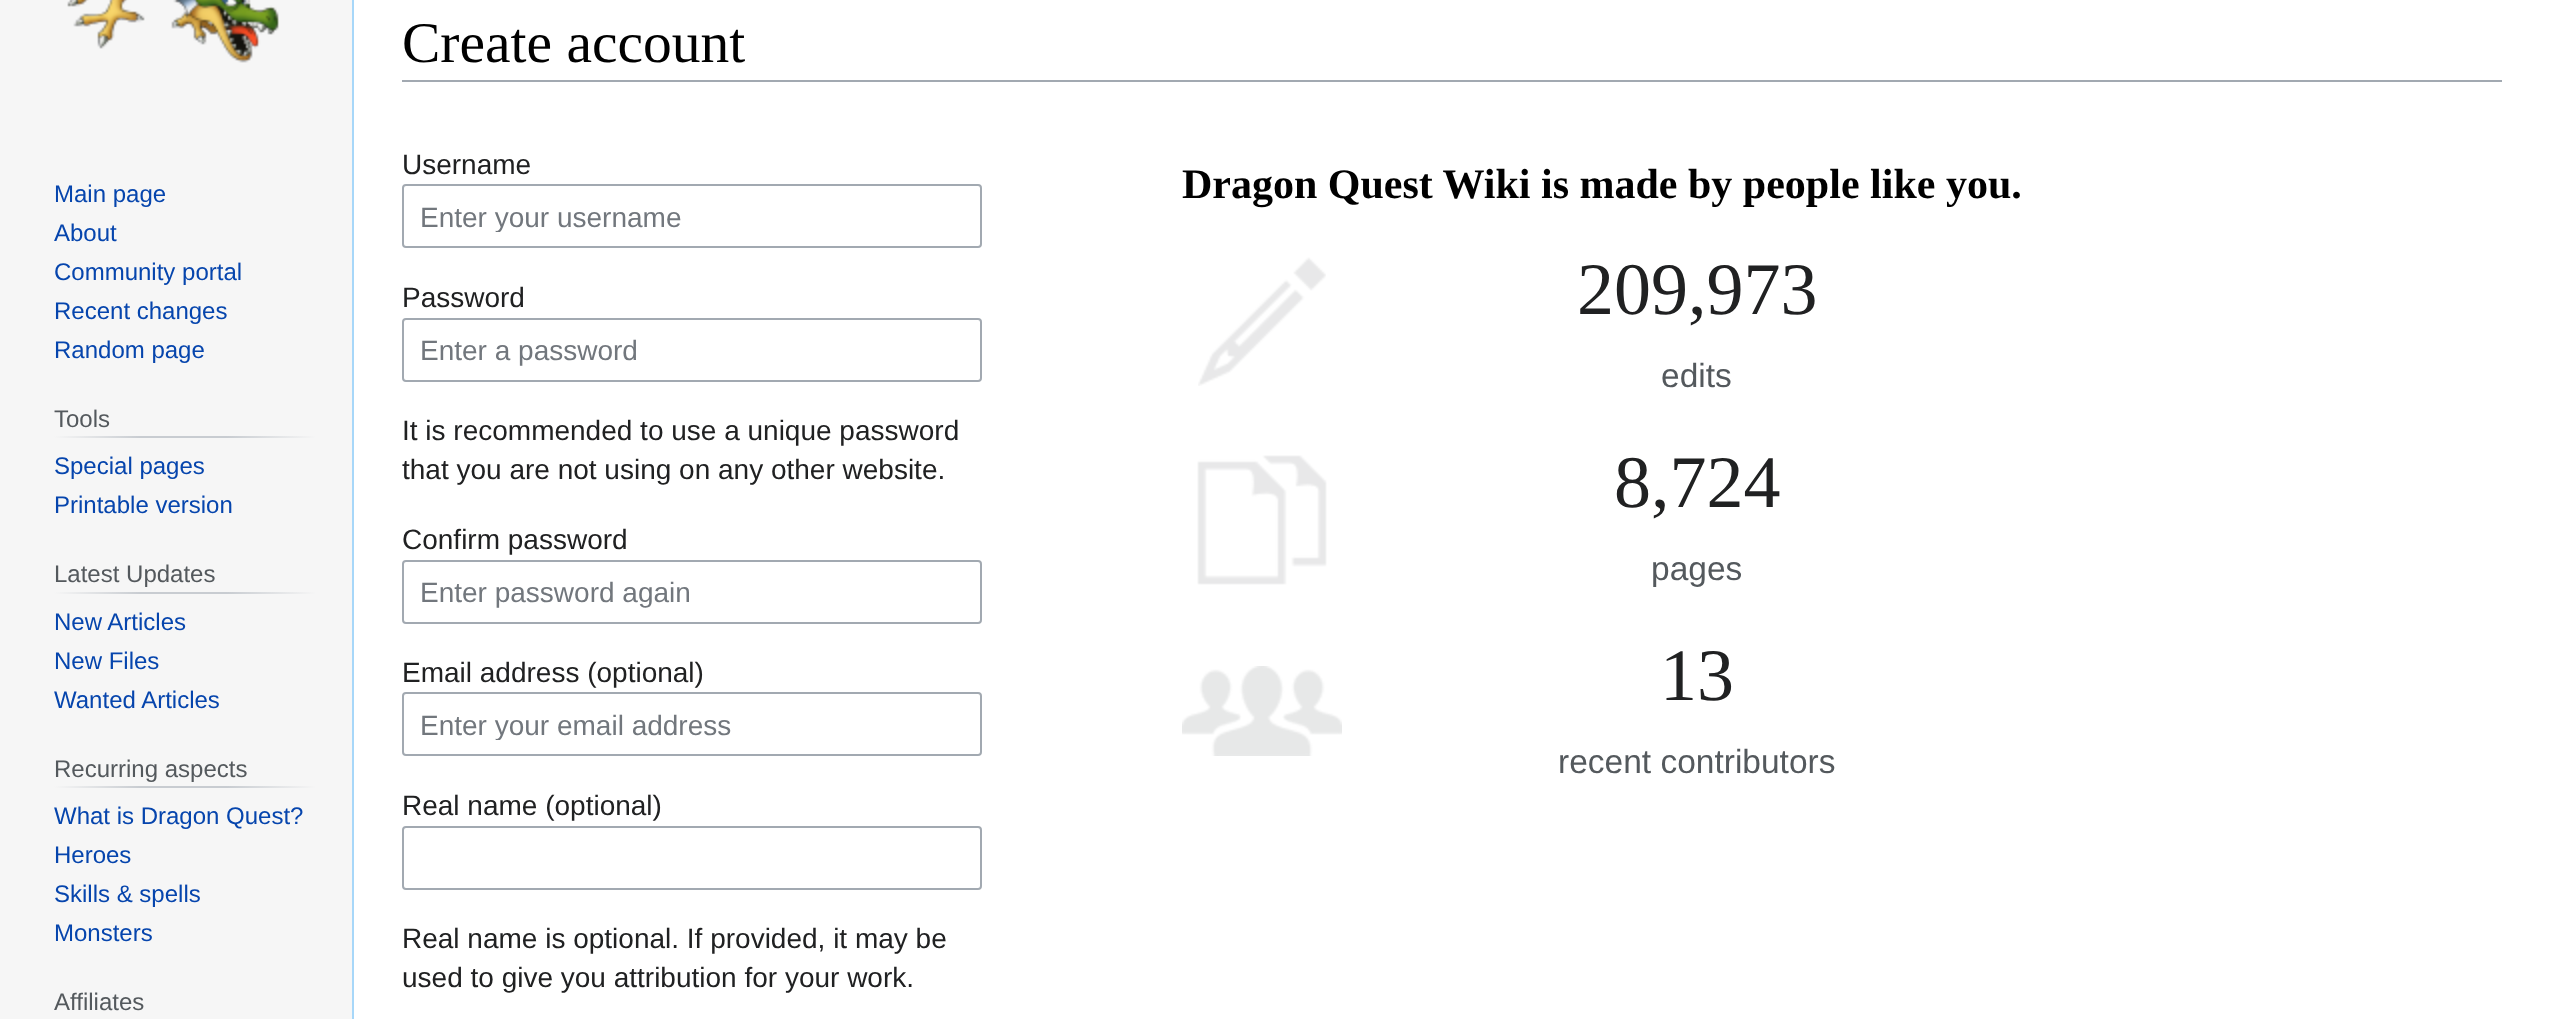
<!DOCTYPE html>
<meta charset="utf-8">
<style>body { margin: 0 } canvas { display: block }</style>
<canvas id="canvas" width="2549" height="1019"></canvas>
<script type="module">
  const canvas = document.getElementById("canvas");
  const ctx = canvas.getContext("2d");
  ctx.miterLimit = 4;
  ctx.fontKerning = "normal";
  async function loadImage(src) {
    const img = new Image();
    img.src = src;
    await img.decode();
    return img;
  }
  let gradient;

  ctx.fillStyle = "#f6f6f6";
  ctx.fillRect(0, 0, 2549, 1019);
  ctx.drawImage(await loadImage("img1.png"), 67, 0, 212, 63);
  ctx.font = "24px Liberation Sans";
  ctx.fillStyle = "#0645ad";
  ctx.fillText("Main page", 54, 202);
  ctx.fillText("About", 54, 241);
  ctx.fillText("Community portal", 54, 280);
  ctx.fillText("Recent changes", 54, 319);
  ctx.fillText("Random page", 54, 358);
  gradient = ctx.createLinearGradient(54, 437, 316, 437);
  gradient.addColorStop(0, "#f6f6f6");
  gradient.addColorStop(0.33, "#c8ccd1");
  gradient.addColorStop(0.66, "#c8ccd1");
  gradient.addColorStop(1, "#f6f6f6");
  ctx.fillStyle = gradient;
  ctx.fillRect(54, 436, 262, 2);
  ctx.fillStyle = "#54595d";
  ctx.fillText("Tools", 54, 427);
  ctx.fillStyle = "#0645ad";
  ctx.fillText("Special pages", 54, 474);
  ctx.fillText("Printable version", 54, 513);
  gradient = ctx.createLinearGradient(54, 593, 316, 593);
  gradient.addColorStop(0, "#f6f6f6");
  gradient.addColorStop(0.33, "#c8ccd1");
  gradient.addColorStop(0.66, "#c8ccd1");
  gradient.addColorStop(1, "#f6f6f6");
  ctx.fillStyle = gradient;
  ctx.fillRect(54, 592, 262, 2);
  ctx.fillStyle = "#54595d";
  ctx.fillText("Latest Updates", 54, 582);
  ctx.fillStyle = "#0645ad";
  ctx.fillText("New Articles", 54, 630);
  ctx.fillText("New Files", 54, 669);
  ctx.fillText("Wanted Articles", 54, 708);
  gradient = ctx.createLinearGradient(54, 787, 316, 787);
  gradient.addColorStop(0, "#f6f6f6");
  gradient.addColorStop(0.33, "#c8ccd1");
  gradient.addColorStop(0.66, "#c8ccd1");
  gradient.addColorStop(1, "#f6f6f6");
  ctx.fillStyle = gradient;
  ctx.fillRect(54, 786, 262, 2);
  ctx.fillStyle = "#54595d";
  ctx.fillText("Recurring aspects", 54, 777);
  ctx.fillStyle = "#0645ad";
  ctx.fillText("What is Dragon Quest?", 54, 824);
  ctx.fillText("Heroes", 54, 863);
  ctx.fillText("Skills & spells", 54, 902);
  ctx.fillText("Monsters", 54, 941);
  ctx.fillStyle = "#54595d";
  ctx.fillText("Affiliates", 54, 1010);
  ctx.fillStyle = "#ffffff";
  ctx.fillRect(354, 0, 2195, 1019);
  ctx.fillStyle = "#a7d7f9";
  ctx.fillRect(352, 0, 2, 1019);
  ctx.fillStyle = "#a2a9b1";
  ctx.fillRect(402, 80, 2100, 2);
  ctx.font = "57.5px Liberation Serif";
  ctx.fillStyle = "#000000";
  ctx.fillText("Create account", 402, 62);
  ctx.font = "28px Liberation Sans";
  ctx.fillStyle = "#202122";
  ctx.fillText("Username", 402, 174);
  ctx.beginPath();
  ctx.roundRect(403, 185, 578, 62, 3);
  ctx.strokeStyle = "#a2a9b1";
  ctx.lineWidth = 2;
  ctx.stroke();
  ctx.save();
  ctx.beginPath();
  ctx.rect(420, 200, 544, 32);
  ctx.clip();
  ctx.fillStyle = "#72777d";
  ctx.fillText("Enter your username", 420, 227);
  ctx.restore();
  ctx.fillText("Password", 402, 307);
  ctx.beginPath();
  ctx.roundRect(403, 319, 578, 62, 3);
  ctx.stroke();
  ctx.fillStyle = "#72777d";
  ctx.fillText("Enter a password", 420, 360);
  ctx.fillStyle = "#202122";
  ctx.fillText("It is recommended to use a unique password", 402, 440);
  ctx.fillText("that you are not using on any other website.", 402, 479);
  ctx.fillText("Confirm password", 402, 549);
  ctx.beginPath();
  ctx.roundRect(403, 561, 578, 62, 3);
  ctx.stroke();
  ctx.fillStyle = "#72777d";
  ctx.fillText("Enter password again", 420, 602);
  ctx.fillStyle = "#202122";
  ctx.fillText("Email address (optional)", 402, 682);
  ctx.beginPath();
  ctx.roundRect(403, 693, 578, 62, 3);
  ctx.stroke();
  ctx.save();
  ctx.beginPath();
  ctx.rect(420, 708, 544, 32);
  ctx.clip();
  ctx.fillStyle = "#72777d";
  ctx.fillText("Enter your email address", 420, 735);
  ctx.restore();
  ctx.fillText("Real name (optional)", 402, 815);
  ctx.beginPath();
  ctx.roundRect(403, 827, 578, 62, 3);
  ctx.stroke();
  ctx.fillText("Real name is optional. If provided, it may be", 402, 948);
  ctx.fillText("used to give you attribution for your work.", 402, 987);
  ctx.font = "bold 42px Liberation Serif";
  ctx.fillStyle = "#000000";
  ctx.fillText("Dragon Quest Wiki is made by people like you.", 1182, 198);
  ctx.drawImage(await loadImage("img2.png"), 1198, 257, 128, 129);
  ctx.font = "74px Liberation Serif";
  ctx.fillStyle = "#202122";
  ctx.fillText("209,973", 1577, 314);
  ctx.font = "33.5px Liberation Sans";
  ctx.fillStyle = "#54595d";
  ctx.fillText("edits", 1661, 387);
  ctx.drawImage(await loadImage("img3.png"), 1197, 455, 130, 130);
  ctx.font = "74px Liberation Serif";
  ctx.fillStyle = "#202122";
  ctx.fillText("8,724", 1614, 507);
  ctx.font = "33.5px Liberation Sans";
  ctx.fillStyle = "#54595d";
  ctx.fillText("pages", 1651, 580);
  ctx.drawImage(await loadImage("img4.png"), 1182, 666, 160, 90);
  ctx.font = "74px Liberation Serif";
  ctx.fillStyle = "#202122";
  ctx.fillText("13", 1660, 700);
  ctx.font = "33.5px Liberation Sans";
  ctx.fillStyle = "#54595d";
  ctx.fillText("recent contributors", 1558, 773);
</script>
